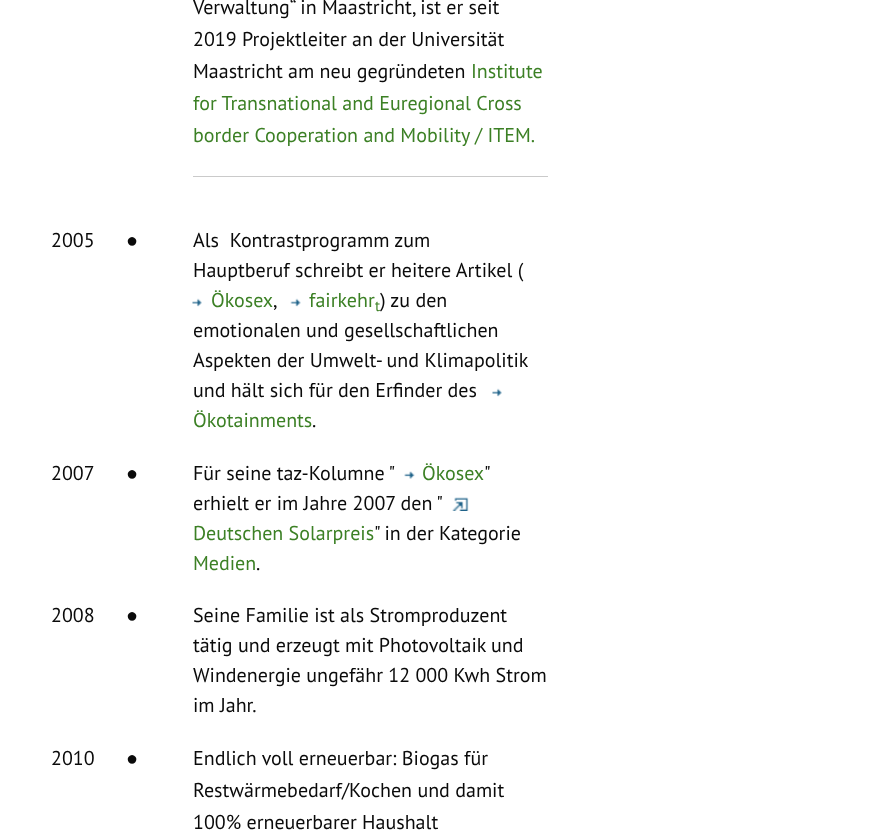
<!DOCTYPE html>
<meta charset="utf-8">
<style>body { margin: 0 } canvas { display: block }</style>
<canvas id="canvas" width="878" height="838"></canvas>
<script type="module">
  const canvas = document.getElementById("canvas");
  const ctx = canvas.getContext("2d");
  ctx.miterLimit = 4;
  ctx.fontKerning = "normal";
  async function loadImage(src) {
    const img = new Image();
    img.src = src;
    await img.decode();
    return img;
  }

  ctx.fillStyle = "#ffffff";
  ctx.fillRect(0, 0, 878, 838);
  ctx.font = "20px PT Sans";
  ctx.fillStyle = "#0a0a0a";
  ctx.fillText("Verwaltung“ in Maastricht, ist er seit", 193, 14);
  ctx.fillText("2019 Projektleiter an der Universität", 193, 46);
  ctx.fillText("Maastricht am neu gegründeten", 193, 78);
  ctx.fillStyle = "#3c8025";
  ctx.fillText("Institute", 471, 78);
  ctx.fillText("for Transnational and Euregional Cross", 193, 110);
  ctx.fillText("border Cooperation and Mobility / ITEM.", 193, 142);
  ctx.fillStyle = "#cacaca";
  ctx.fillRect(193, 176, 355, 1);
  ctx.fillStyle = "#0a0a0a";
  ctx.fillText("2005", 51, 247);
  ctx.font = "20px Liberation Sans";
  ctx.fillText("●", 126, 247);
  ctx.font = "20px PT Sans";
  ctx.fillText("Als  Kontrastprogramm zum", 193, 247);
  ctx.fillText("Hauptberuf schreibt er heitere Artikel (", 193, 277);
  ctx.drawImage(await loadImage("img1.png"), 192, 298, 10, 9);
  ctx.fillStyle = "#3c8025";
  ctx.fillText("Ökosex", 211, 307);
  ctx.fillStyle = "#0a0a0a";
  ctx.fillText(",", 273, 307);
  ctx.drawImage(await loadImage("img2.png"), 290, 298, 11, 9);
  ctx.fillStyle = "#3c8025";
  ctx.fillText("fairkehr", 309, 307);
  ctx.font = "15px PT Sans";
  ctx.fillText("t", 375, 311);
  ctx.font = "20px PT Sans";
  ctx.fillStyle = "#0a0a0a";
  ctx.fillText(") zu den", 380, 307);
  ctx.fillText("emotionalen und gesellschaftlichen", 193, 337);
  ctx.fillText("Aspekten der Umwelt- und Klimapolitik", 193, 367);
  ctx.fillText("und hält sich für den Erfinder des", 193, 397);
  ctx.drawImage(await loadImage("img3.png"), 492, 388, 10, 9);
  ctx.fillStyle = "#3c8025";
  ctx.fillText("Ökotainments", 193, 427);
  ctx.fillStyle = "#0a0a0a";
  ctx.fillText(".", 312, 427);
  ctx.fillText("2007", 51, 480);
  ctx.font = "20px Liberation Sans";
  ctx.fillText("●", 126, 480);
  ctx.font = "20px PT Sans";
  ctx.fillText("Für seine taz-Kolumne \"", 193, 480);
  ctx.drawImage(await loadImage("img4.png"), 404, 471, 11, 8);
  ctx.fillStyle = "#3c8025";
  ctx.fillText("Ökosex", 422, 480);
  ctx.fillStyle = "#0a0a0a";
  ctx.fillText("\"", 484, 480);
  ctx.fillText("erhielt er im Jahre 2007 den \"", 193, 510);
  ctx.drawImage(await loadImage("img5.png"), 452, 497, 17, 14);
  ctx.fillStyle = "#3c8025";
  ctx.fillText("Deutschen Solarpreis", 193, 540);
  ctx.fillStyle = "#0a0a0a";
  ctx.fillText("\" in der Kategorie", 374, 540);
  ctx.fillStyle = "#3c8025";
  ctx.fillText("Medien", 193, 570);
  ctx.fillStyle = "#0a0a0a";
  ctx.fillText(".", 256, 570);
  ctx.fillText("2008", 51, 622);
  ctx.font = "20px Liberation Sans";
  ctx.fillText("●", 126, 622);
  ctx.font = "20px PT Sans";
  ctx.fillText("Seine Familie ist als Stromproduzent", 193, 622);
  ctx.fillText("tätig und erzeugt mit Photovoltaik und", 193, 652);
  ctx.fillText("Windenergie ungefähr 12 000 Kwh Strom", 193, 682);
  ctx.fillText("im Jahr.", 193, 712);
  ctx.fillText("2010", 51, 765);
  ctx.font = "20px Liberation Sans";
  ctx.fillText("●", 126, 765);
  ctx.font = "20px PT Sans";
  ctx.fillText("Endlich voll erneuerbar: Biogas für", 193, 765);
  ctx.fillText("Restwärmebedarf/Kochen und damit", 193, 797);
  ctx.fillText("100% erneuerbarer Haushalt", 193, 829);
</script>
